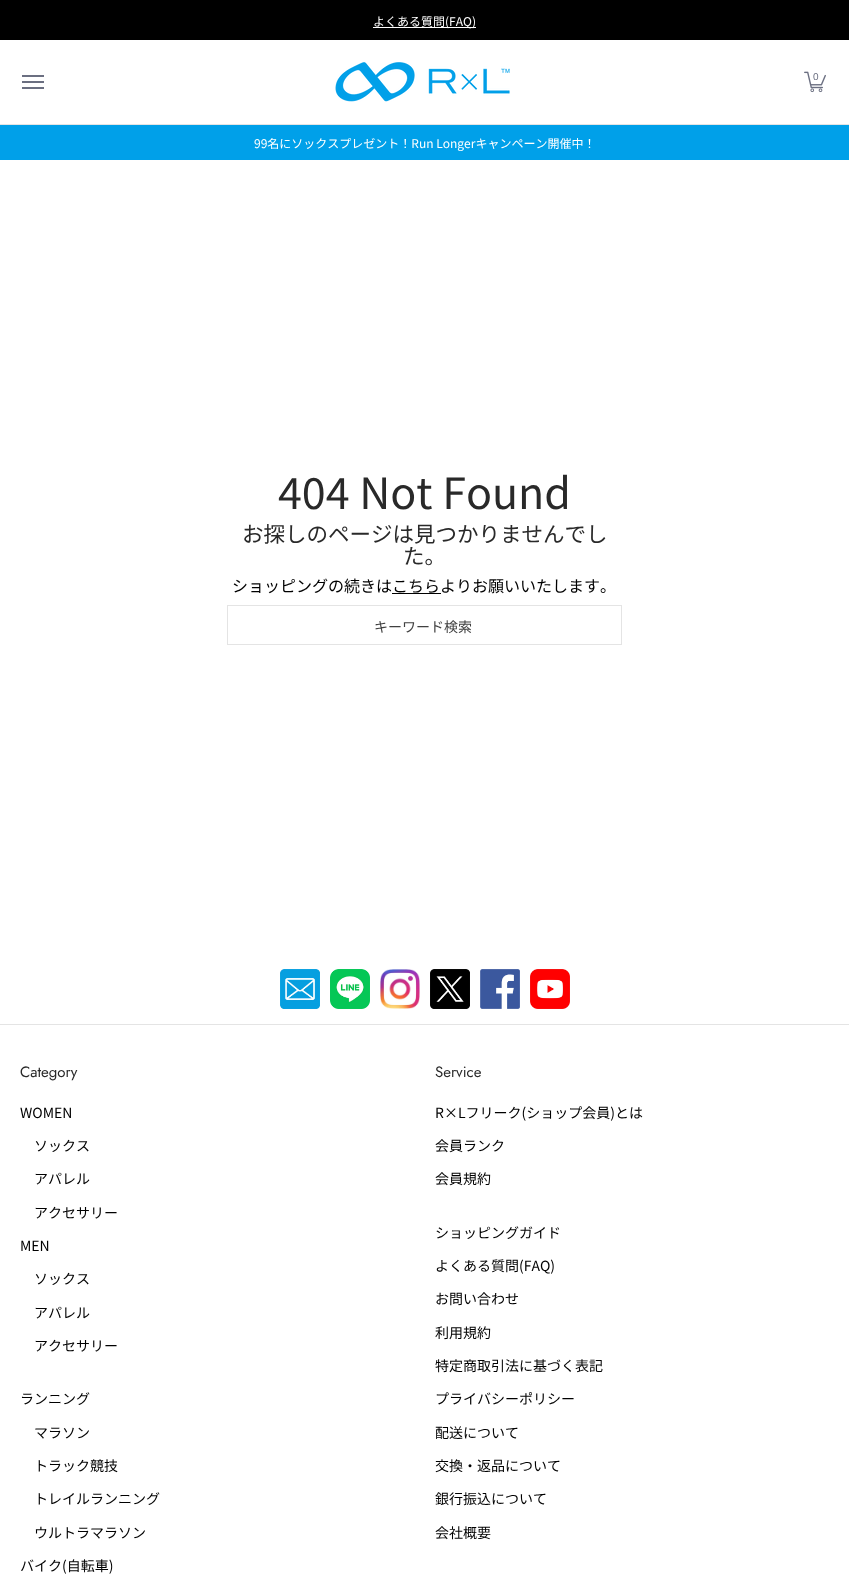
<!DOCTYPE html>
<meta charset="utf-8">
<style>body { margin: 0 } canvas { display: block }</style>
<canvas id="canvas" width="849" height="1588"></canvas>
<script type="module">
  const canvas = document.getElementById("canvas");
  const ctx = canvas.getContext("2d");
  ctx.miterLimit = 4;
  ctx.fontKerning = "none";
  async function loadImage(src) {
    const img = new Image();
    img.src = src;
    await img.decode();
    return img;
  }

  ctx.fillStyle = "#ffffff";
  ctx.fillRect(0, 0, 849, 1588);
  ctx.fillStyle = "#000000";
  ctx.fillRect(0, 0, 849, 40);
  ctx.fillStyle = "#ffffff";
  ctx.fillRect(373, 27, 103, 1);
  ctx.font = "12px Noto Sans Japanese";
  ctx.fillText("よくある質問(FAQ)", 373, 26);
  ctx.fillStyle = "#e4e4e4";
  ctx.fillRect(0, 124, 849, 1);
  ctx.fillStyle = "#6b6f81";
  ctx.fillRect(22, 75, 22, 2);
  ctx.fillRect(22, 87, 22, 2);
  ctx.fillRect(22, 81, 22, 2);
  ctx.drawImage(await loadImage("img1.png"), 335, 62, 175, 40);
  ctx.drawImage(await loadImage("img2.png"), 804, 71, 22, 22);
  ctx.font = "10px Liberation Sans";
  ctx.fillText("0", 813, 80);
  ctx.fillStyle = "#00a0e9";
  ctx.fillRect(0, 125, 849, 35);
  ctx.font = "12px Noto Sans Japanese";
  ctx.fillStyle = "#ffffff";
  ctx.fillText("99名にソックスプレゼント！Run Longerキャンペーン開催中！", 254, 148);
  ctx.font = "43px Noto Sans JP";
  ctx.fillStyle = "#292929";
  ctx.fillText("404 Not Found", 278, 509);
  ctx.font = "21.5px Noto Sans JP";
  ctx.fillText("お探しのページは見つかりませんでし", 242, 542);
  ctx.fillText("た。", 403, 564);
  ctx.font = "16px Noto Sans Japanese";
  ctx.fillStyle = "#000000";
  ctx.fillText("ショッピングの続きはこちらよりお願いいたします。", 232, 592);
  ctx.fillRect(392, 593, 49, 1);
  ctx.strokeStyle = "#e4e4e4";
  ctx.strokeRect(227.5, 605.5, 394, 39);
  ctx.font = "14px Noto Sans Japanese";
  ctx.fillStyle = "#404040";
  ctx.fillText("キーワード検索", 374, 632);
  ctx.fillStyle = "#e4e4e4";
  ctx.fillRect(0, 1024, 849, 1);
  ctx.drawImage(await loadImage("img3.png"), 280, 969, 40, 40);
  ctx.drawImage(await loadImage("img4.png"), 330, 969, 40, 40);
  ctx.drawImage(await loadImage("img5.png"), 380, 969, 40, 40);
  ctx.drawImage(await loadImage("img6.png"), 430, 969, 40, 40);
  ctx.drawImage(await loadImage("img7.png"), 480, 969, 40, 40);
  ctx.drawImage(await loadImage("img8.png"), 530, 969, 40, 40);
  ctx.font = "15px Jost";
  ctx.fillStyle = "#292929";
  ctx.fillText("Category", 20, 1077);
  ctx.font = "14px Noto Sans Japanese";
  ctx.fillStyle = "#000000";
  ctx.fillText("WOMEN", 20, 1118);
  ctx.fillText("ソックス", 34, 1151);
  ctx.fillText("アパレル", 34, 1184);
  ctx.fillText("アクセサリー", 34, 1218);
  ctx.fillText("MEN", 20, 1251);
  ctx.fillText("ソックス", 34, 1284);
  ctx.fillText("アパレル", 34, 1318);
  ctx.fillText("アクセサリー", 34, 1351);
  ctx.fillText("ランニング", 20, 1404);
  ctx.fillText("マラソン", 34, 1438);
  ctx.fillText("トラック競技", 34, 1471);
  ctx.fillText("トレイルランニング", 34, 1504);
  ctx.fillText("ウルトラマラソン", 34, 1538);
  ctx.fillText("バイク(自転車)", 20, 1571);
  ctx.font = "15px Jost";
  ctx.fillStyle = "#292929";
  ctx.fillText("Service", 435, 1077);
  ctx.font = "14px Noto Sans Japanese";
  ctx.fillStyle = "#000000";
  ctx.fillText("R×Lフリーク(ショップ会員)とは", 435, 1118);
  ctx.fillText("会員ランク", 435, 1151);
  ctx.fillText("会員規約", 435, 1184);
  ctx.fillText("ショッピングガイド", 435, 1238);
  ctx.fillText("よくある質問(FAQ)", 435, 1271);
  ctx.fillText("お問い合わせ", 435, 1304);
  ctx.fillText("利用規約", 435, 1338);
  ctx.fillText("特定商取引法に基づく表記", 435, 1371);
  ctx.fillText("プライバシーポリシー", 435, 1404);
  ctx.fillText("配送について", 435, 1438);
  ctx.fillText("交換・返品について", 435, 1471);
  ctx.fillText("銀行振込について", 435, 1504);
  ctx.fillText("会社概要", 435, 1538);
</script>
